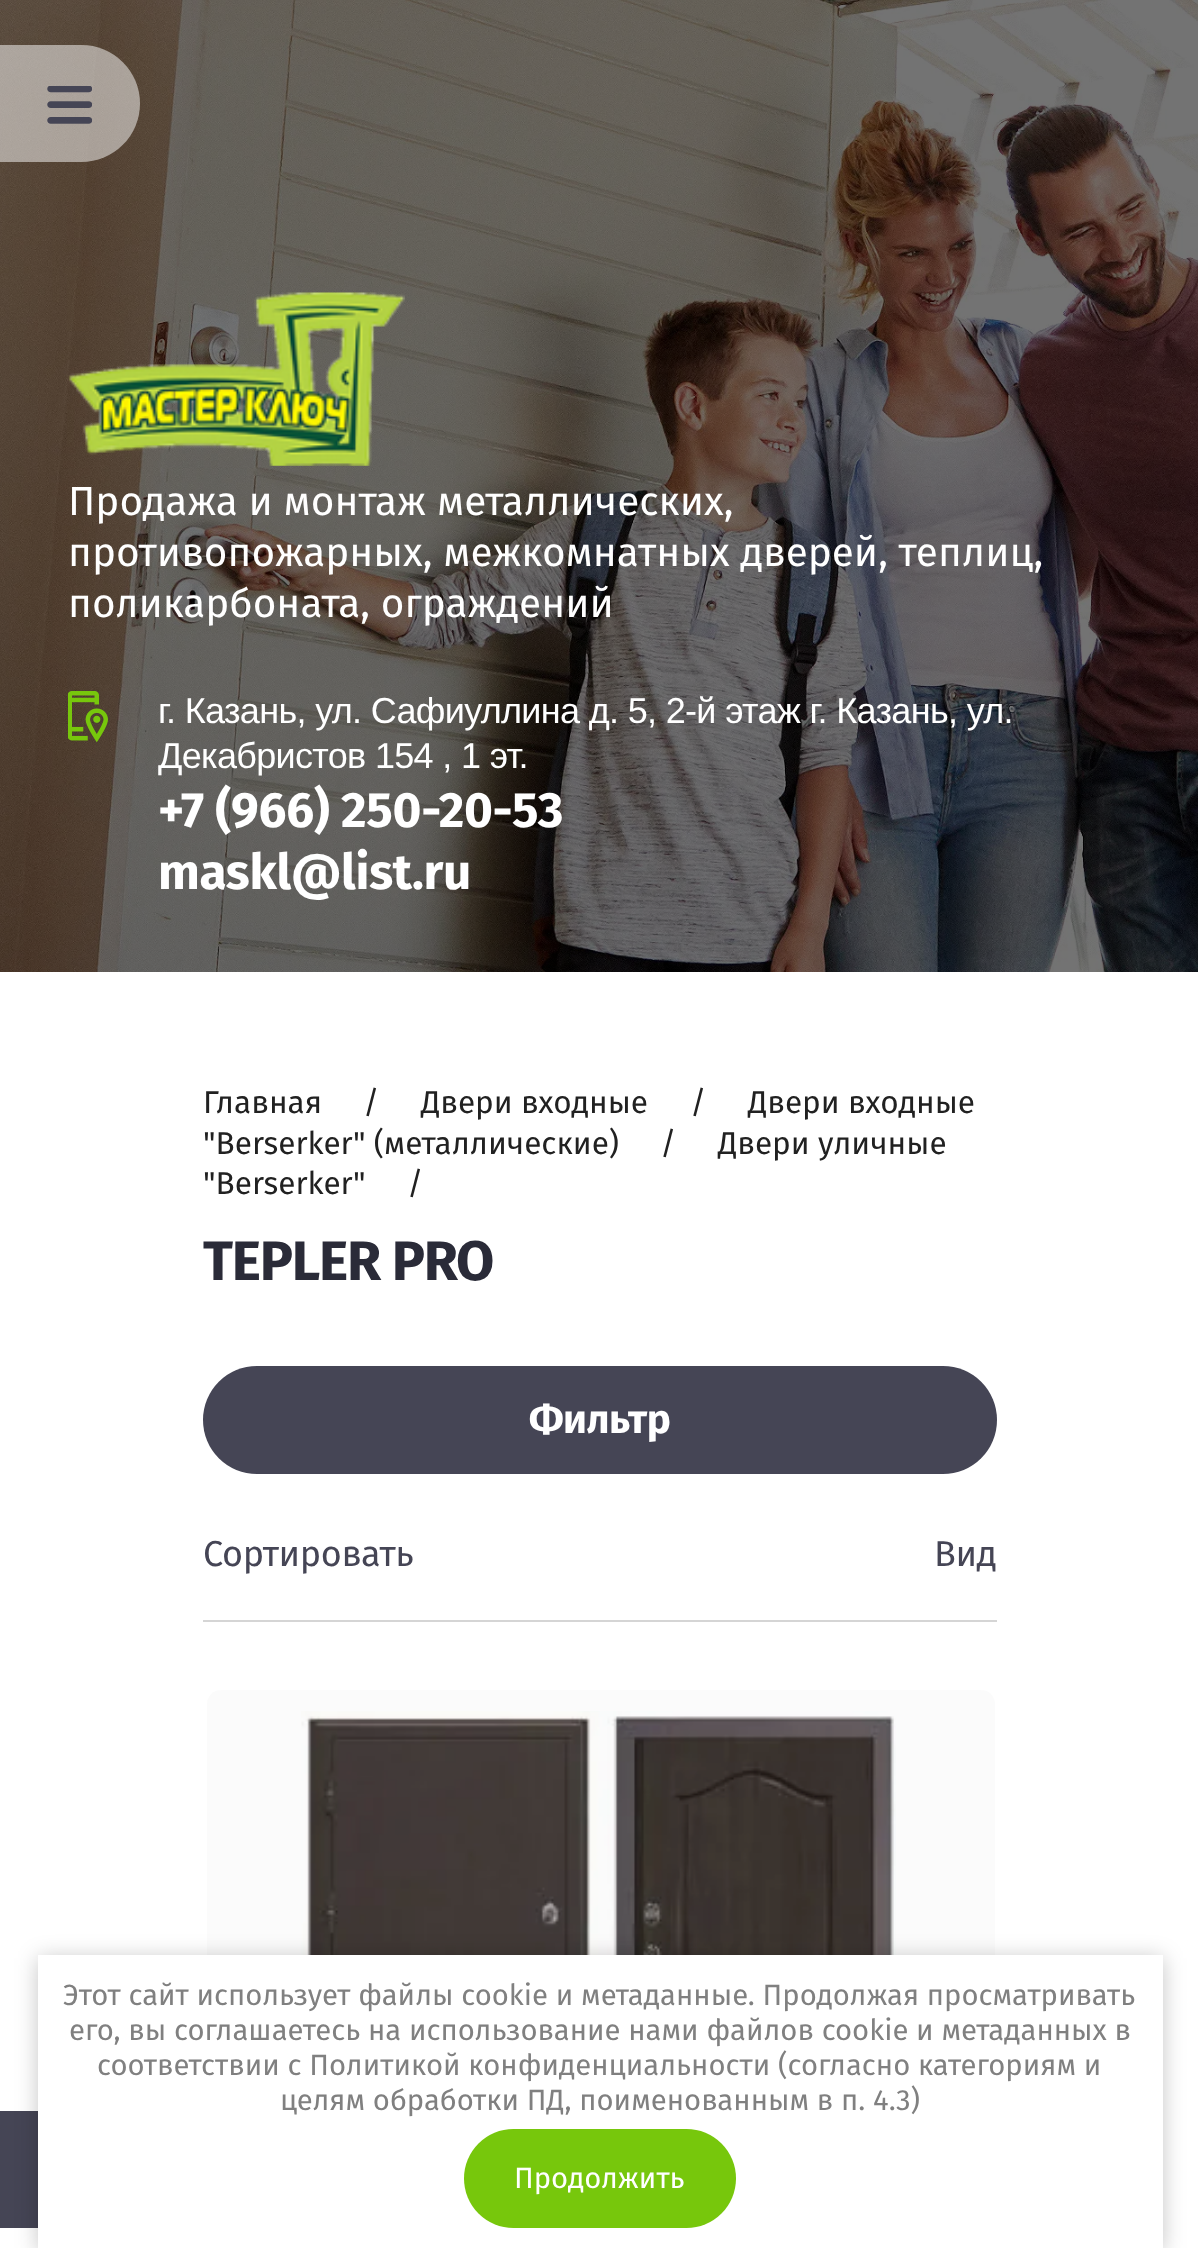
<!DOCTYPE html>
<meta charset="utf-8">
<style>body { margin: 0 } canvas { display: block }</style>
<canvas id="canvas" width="1198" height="2248"></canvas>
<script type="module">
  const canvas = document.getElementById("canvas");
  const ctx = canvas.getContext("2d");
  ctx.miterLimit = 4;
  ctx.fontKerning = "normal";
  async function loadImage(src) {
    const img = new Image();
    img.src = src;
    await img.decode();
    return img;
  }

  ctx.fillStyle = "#ffffff";
  ctx.fillRect(0, 0, 1198, 2248);
  ctx.drawImage(await loadImage("img2.png"), 0, 0, 1198, 972);
  ctx.fillStyle = "rgba(255, 255, 255, 0.5)";
  ctx.beginPath();
  ctx.roundRect(0, 45, 140, 117, [0, 58.5, 58.5, 0]);
  ctx.fill();
  ctx.drawImage(await loadImage("img1.png"), 47, 86, 45, 38);
  ctx.drawImage(await loadImage("img3.png"), 67, 292, 338, 174);
  ctx.font = "40.5px Fira Sans";
  ctx.fillStyle = "#ffffff";
  ctx.fillText("Продажа и монтаж металлических,", 68, 515);
  ctx.fillText("противопожарных, межкомнатных дверей, теплиц,", 68, 566);
  ctx.fillText("поликарбоната, ограждений", 68, 617);
  ctx.drawImage(await loadImage("img4.png"), 68, 691, 40, 52);
  ctx.letterSpacing = "-0.67px";
  ctx.font = "36px Liberation Sans";
  ctx.fillText("г. Казань, ул. Сафиуллина д. 5, 2-й этаж г. Казань, ул.", 158, 723);
  ctx.fillText("Декабристов 154 , 1 эт.", 158, 768);
  ctx.letterSpacing = "-0.3px";
  ctx.font = "bold 49.5px Fira Sans";
  ctx.fillText("+7 (966) 250-20-53", 158, 827);
  ctx.fillText("maskl@list.ru", 158, 889);
  ctx.letterSpacing = "0px";
  ctx.font = "31.5px Fira Sans";
  ctx.fillStyle = "#212121";
  ctx.fillText("Главная", 203, 1113);
  ctx.fillText("/", 363, 1113);
  ctx.fillText("Двери входные", 421, 1113);
  ctx.fillText("/", 690, 1113);
  ctx.fillText("Двери входные", 748, 1113);
  ctx.fillText("\"Berserker\" (металлические)", 203, 1154);
  ctx.fillText("/", 660, 1154);
  ctx.fillText("Двери уличные", 718, 1154);
  ctx.fillText("\"Berserker\"", 203, 1194);
  ctx.fillText("/", 407, 1194);
  ctx.letterSpacing = "-1.25px";
  ctx.font = "bold 55.5px Fira Sans";
  ctx.fillStyle = "#2a2b38";
  ctx.fillText("TEPLER PRO", 203, 1280);
  ctx.fillStyle = "#454555";
  ctx.beginPath();
  ctx.roundRect(203, 1366, 794, 108, 54);
  ctx.fill();
  ctx.letterSpacing = "-0.5px";
  ctx.font = "bold 40.5px Fira Sans";
  ctx.fillStyle = "#ffffff";
  ctx.fillText("Фильтр", 529, 1433);
  ctx.fillStyle = "#d5d5d5";
  ctx.fillRect(203, 1620, 794, 2);
  ctx.letterSpacing = "-0.4px";
  ctx.font = "36px Fira Sans";
  ctx.fillStyle = "#454555";
  ctx.fillText("Сортировать", 203, 1566);
  ctx.fillText("Вид", 934, 1566);
  ctx.drawImage(await loadImage("img5.png"), 301, 1711, 595, 244);
  ctx.fillStyle = "rgba(213, 213, 213, 0.1)";
  ctx.beginPath();
  ctx.roundRect(207, 1690, 788, 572, 14);
  ctx.fill();
  ctx.fillStyle = "#454555";
  ctx.fillRect(0, 2111, 38, 117);
  ctx.fillStyle = "rgba(0, 0, 0, 0.23)";
  ctx.filter = "blur(11px)";
  ctx.beginPath();
  ctx.rect(38, 1958, 1125, 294);
  ctx.fill();
  ctx.filter = "none";
  ctx.fillStyle = "#ffffff";
  ctx.fillRect(38, 1955, 1125, 293);
  ctx.letterSpacing = "0px";
  ctx.font = "29.25px Fira Sans";
  ctx.fillStyle = "#808080";
  ctx.fillText("Этот сайт использует файлы cookie и метаданные. Продолжая просматривать", 63, 2005);
  ctx.fillText("его, вы соглашаетесь на использование нами файлов cookie и метаданных в", 69, 2040);
  ctx.fillText("соответствии с Политикой конфиденциальности (согласно категориям и", 97, 2075);
  ctx.fillText("целям обработки ПД, поименованным в п. 4.3)", 280, 2110);
  ctx.fillStyle = "#77c70c";
  ctx.beginPath();
  ctx.roundRect(464, 2129, 272, 99, 49.5);
  ctx.fill();
  ctx.fillStyle = "#ffffff";
  ctx.fillText("Продолжить", 514, 2188);
</script>
